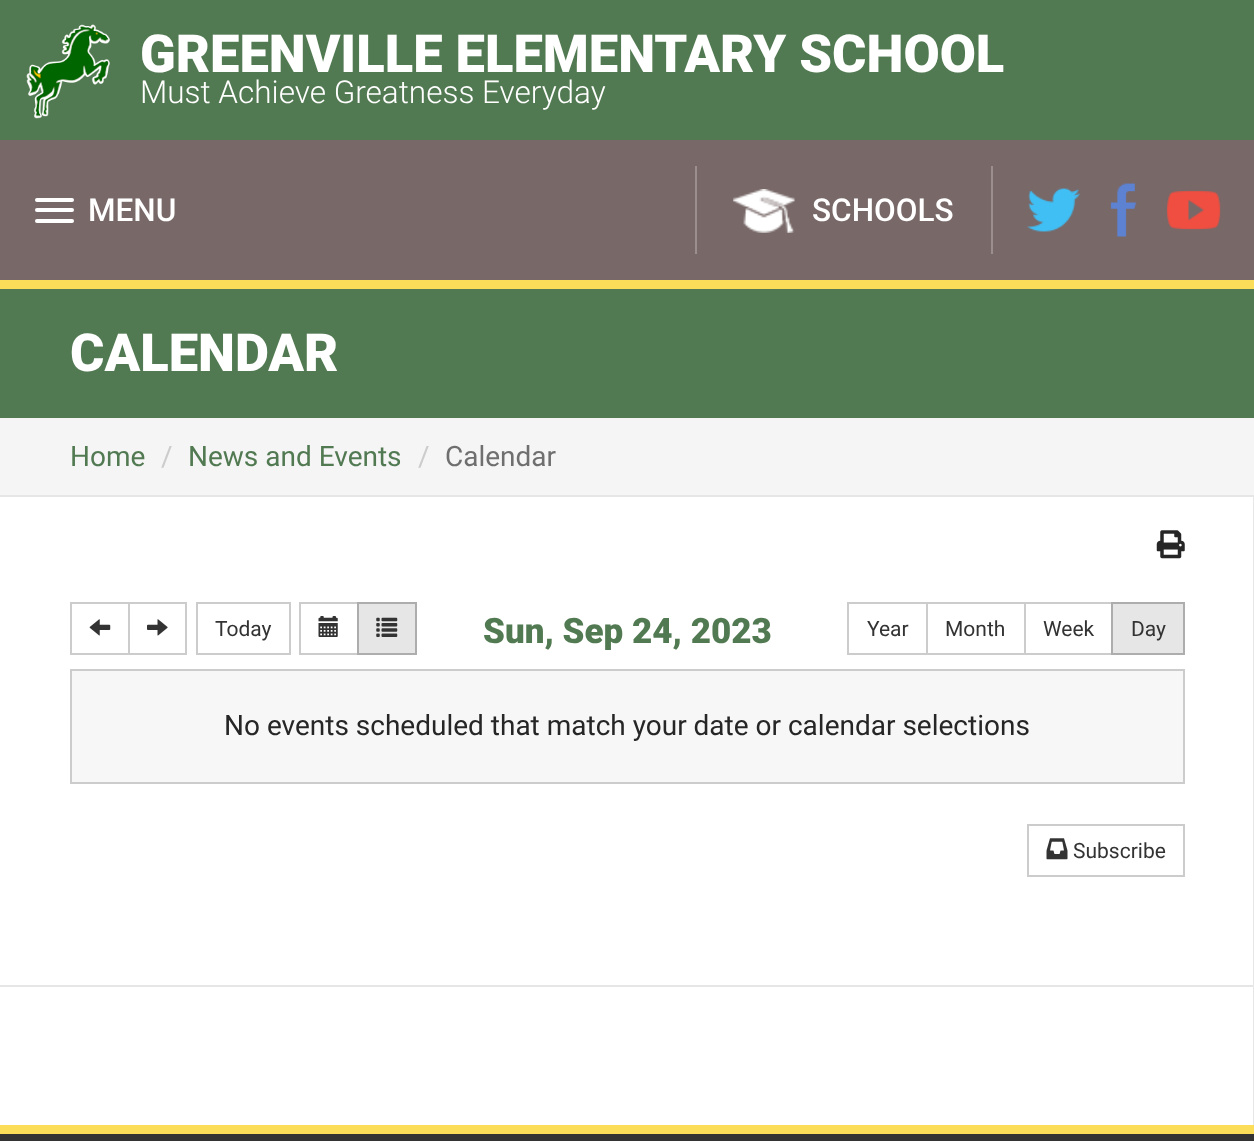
<!DOCTYPE html>
<meta charset="utf-8">
<style>body { margin: 0 } canvas { display: block }</style>
<canvas id="canvas" width="1254" height="1141"></canvas>
<script type="module">
  const canvas = document.getElementById("canvas");
  const ctx = canvas.getContext("2d");
  ctx.miterLimit = 4;
  ctx.fontKerning = "normal";
  async function loadImage(src) {
    const img = new Image();
    img.src = src;
    await img.decode();
    return img;
  }

  ctx.fillStyle = "#786868";
  ctx.fillRect(0, 0, 1254, 1141);
  ctx.fillStyle = "#527a52";
  ctx.fillRect(0, 0, 1254, 140);
  ctx.drawImage(await loadImage("img1.png"), 26, 24, 84, 95);
  ctx.font = "900 52.5px Roboto";
  ctx.fillStyle = "#ffffff";
  ctx.fillText("GREENVILLE ELEMENTARY SCHOOL", 140, 72);
  ctx.font = "300 31.5px Roboto";
  ctx.fillText("Must Achieve Greatness Everyday", 140, 103);
  ctx.beginPath();
  ctx.roundRect(35, 198, 39, 4, 2);
  ctx.fill();
  ctx.font = "500 31.5px Roboto";
  ctx.fillText("MENU", 88, 221);
  ctx.beginPath();
  ctx.roundRect(35, 208, 39, 4, 2);
  ctx.fill();
  ctx.beginPath();
  ctx.roundRect(35, 219, 39, 4, 2);
  ctx.fill();
  ctx.fillStyle = "#9a8e8e";
  ctx.fillRect(991, 166, 2, 88);
  ctx.fillRect(695, 166, 2, 88);
  ctx.drawImage(await loadImage("img2.png"), 733, 189, 62, 44);
  ctx.fillStyle = "#ffffff";
  ctx.fillText("SCHOOLS", 812, 221);
  ctx.drawImage(await loadImage("img3.png"), 1027, 188, 54, 44);
  ctx.drawImage(await loadImage("img4.png"), 1110, 183, 27, 54);
  ctx.drawImage(await loadImage("img5.png"), 1166, 190, 55, 40);
  ctx.fillRect(0, 497, 1253, 628);
  ctx.fillStyle = "#fcdd5a";
  ctx.fillRect(0, 280, 1254, 9);
  ctx.fillRect(0, 1125, 1254, 9);
  ctx.fillStyle = "#527a52";
  ctx.fillRect(0, 289, 1254, 129);
  ctx.font = "900 52.5px Roboto";
  ctx.fillStyle = "#ffffff";
  ctx.fillText("CALENDAR", 70, 371);
  ctx.fillStyle = "#f5f5f5";
  ctx.fillRect(0, 418, 1254, 77);
  ctx.font = "28px Roboto";
  ctx.fillStyle = "#527a52";
  ctx.fillText("Home", 70, 466);
  ctx.fillStyle = "#cccccc";
  ctx.fillText("/", 161, 466);
  ctx.fillStyle = "#527a52";
  ctx.fillText("News and Events", 188, 466);
  ctx.fillStyle = "#cccccc";
  ctx.fillText("/", 418, 466);
  ctx.fillStyle = "#6f6f6f";
  ctx.fillText("Calendar", 445, 466);
  ctx.save();
  ctx.beginPath();
  ctx.rect(0, 495, 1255, 490);
  ctx.clip();
  ctx.fillStyle = "#e6e6e6";
  ctx.beginPath();
  ctx.moveTo(-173, 322);
  ctx.lineTo(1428, 322);
  ctx.lineTo(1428, 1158);
  ctx.lineTo(-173, 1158);
  ctx.closePath();
  ctx.moveTo(-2, 497);
  ctx.lineTo(1253, 497);
  ctx.lineTo(1253, 987);
  ctx.lineTo(-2, 987);
  ctx.closePath();
  ctx.fill("evenodd");
  ctx.restore();
  ctx.drawImage(await loadImage("img6.png"), 1156, 530, 29, 29);
  ctx.font = "900 35px Roboto";
  ctx.fillStyle = "#527a52";
  ctx.fillText("Sun, Sep 24, 2023", 483, 643);
  ctx.strokeStyle = "#cccccc";
  ctx.lineWidth = 2;
  ctx.strokeRect(71, 603, 58, 51);
  ctx.drawImage(await loadImage("img7.png"), 89, 619, 22, 17);
  ctx.strokeRect(129, 603, 57, 51);
  ctx.drawImage(await loadImage("img8.png"), 147, 619, 21, 17);
  ctx.strokeRect(197, 603, 93, 51);
  ctx.font = "21px Roboto";
  ctx.fillStyle = "#333333";
  ctx.fillText("Today", 215, 636);
  ctx.strokeRect(300, 603, 58, 51);
  ctx.drawImage(await loadImage("img9.png"), 318, 616, 20, 21);
  ctx.fillStyle = "#e6e6e6";
  ctx.beginPath();
  ctx.rect(358, 603, 58, 51);
  ctx.fill();
  ctx.strokeStyle = "#adadad";
  ctx.stroke();
  ctx.drawImage(await loadImage("img10.png"), 376, 617, 22, 20);
  ctx.strokeStyle = "#cccccc";
  ctx.strokeRect(848, 603, 79, 51);
  ctx.fillStyle = "#333333";
  ctx.fillText("Year", 867, 636);
  ctx.strokeRect(927, 603, 98, 51);
  ctx.fillText("Month", 945, 636);
  ctx.strokeRect(1025, 603, 87, 51);
  ctx.fillText("Week", 1043, 636);
  ctx.fillStyle = "#e6e6e6";
  ctx.beginPath();
  ctx.rect(1112, 603, 72, 51);
  ctx.fill();
  ctx.strokeStyle = "#adadad";
  ctx.stroke();
  ctx.fillStyle = "#333333";
  ctx.fillText("Day", 1131, 636);
  ctx.fillStyle = "#f7f7f7";
  ctx.beginPath();
  ctx.rect(71, 670, 1113, 113);
  ctx.fill();
  ctx.strokeStyle = "#cccccc";
  ctx.stroke();
  ctx.font = "28px Roboto";
  ctx.fillStyle = "#262626";
  ctx.fillText("No events scheduled that match your date or calendar selections", 224, 735);
  ctx.strokeRect(1028, 825, 156, 51);
  ctx.drawImage(await loadImage("img11.png"), 1046, 838, 22, 22);
  ctx.font = "21px Roboto";
  ctx.fillStyle = "#333333";
  ctx.fillText("Subscribe", 1073, 858);
  ctx.save();
  ctx.beginPath();
  ctx.rect(0, 985, 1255, 140);
  ctx.clip();
  ctx.fillStyle = "#e6e6e6";
  ctx.beginPath();
  ctx.moveTo(-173, 812);
  ctx.lineTo(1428, 812);
  ctx.lineTo(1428, 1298);
  ctx.lineTo(-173, 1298);
  ctx.closePath();
  ctx.moveTo(-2, 987);
  ctx.lineTo(1253, 987);
  ctx.lineTo(1253, 1127);
  ctx.lineTo(-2, 1127);
  ctx.closePath();
  ctx.fill("evenodd");
  ctx.restore();
  ctx.fillRect(0, 1134, 1254, 7);
</script>
